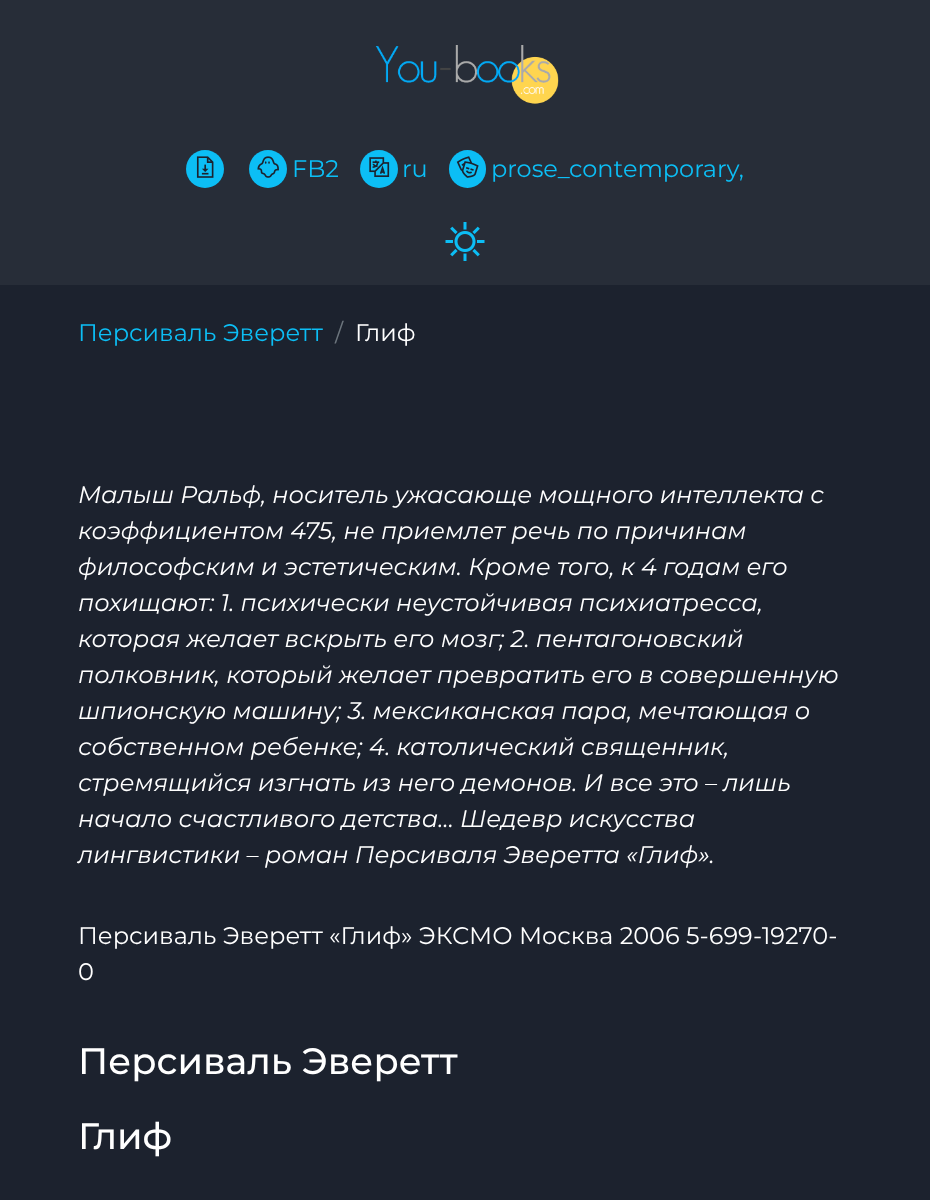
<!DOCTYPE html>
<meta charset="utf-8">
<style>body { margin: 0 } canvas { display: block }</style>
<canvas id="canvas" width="930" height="1200"></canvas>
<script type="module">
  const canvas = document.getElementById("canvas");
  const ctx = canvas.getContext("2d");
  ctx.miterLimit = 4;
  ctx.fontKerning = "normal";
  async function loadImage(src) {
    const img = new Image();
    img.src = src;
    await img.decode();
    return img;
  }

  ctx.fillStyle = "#1c222e";
  ctx.fillRect(0, 0, 930, 1200);
  ctx.fillStyle = "#272d38";
  ctx.fillRect(0, 0, 930, 285);
  ctx.drawImage(await loadImage("img1.png"), 375, 45, 184, 59);
  ctx.fillStyle = "#0cbef5";
  ctx.beginPath();
  ctx.arc(205, 169, 19, 0, Math.PI * 2);
  ctx.fill();
  ctx.drawImage(await loadImage("img2.png"), 196, 156, 18, 22);
  ctx.beginPath();
  ctx.arc(268, 169, 19, 0, Math.PI * 2);
  ctx.fill();
  ctx.drawImage(await loadImage("img3.png"), 257, 156, 22, 22);
  ctx.font = "24px Montserrat";
  ctx.fillText("FB2", 292, 177);
  ctx.beginPath();
  ctx.arc(379, 169, 19, 0, Math.PI * 2);
  ctx.fill();
  ctx.drawImage(await loadImage("img4.png"), 369, 157, 21, 20);
  ctx.fillText("ru", 402, 177);
  ctx.beginPath();
  ctx.roundRect(449, 150, 37, 38, 18.5);
  ctx.fill();
  ctx.drawImage(await loadImage("img5.png"), 456, 156, 23, 22);
  ctx.fillText("prose_contemporary,", 491, 177);
  ctx.drawImage(await loadImage("img6.png"), 445, 222, 40, 39);
  ctx.fillText("Персиваль Эверетт", 78, 341);
  ctx.fillStyle = "#6c757d";
  ctx.fillText("/", 335, 341);
  ctx.fillStyle = "#ffffff";
  ctx.fillText("Глиф", 355, 341);
  ctx.font = "italic 24px Montserrat";
  ctx.fillText("Малыш Ральф, носитель ужасающе мощного интеллекта с", 78, 503);
  ctx.fillText("коэффициентом 475, не приемлет речь по причинам", 78, 539);
  ctx.fillText("философским и эстетическим. Кроме того, к 4 годам его", 78, 575);
  ctx.fillText("похищают: 1. психически неустойчивая психиатресса,", 78, 611);
  ctx.fillText("которая желает вскрыть его мозг; 2. пентагоновский", 78, 647);
  ctx.fillText("полковник, который желает превратить его в совершенную", 78, 683);
  ctx.fillText("шпионскую машину; 3. мексиканская пара, мечтающая о", 78, 719);
  ctx.fillText("собственном ребенке; 4. католический священник,", 78, 755);
  ctx.fillText("стремящийся изгнать из него демонов. И все это – лишь", 78, 791);
  ctx.fillText("начало счастливого детства… Шедевр искусства", 78, 827);
  ctx.fillText("лингвистики – роман Персиваля Эверетта «Глиф».", 78, 863);
  ctx.font = "24px Montserrat";
  ctx.fillText("Персиваль Эверетт «Глиф» ЭКСМО Москва 2006 5-699-19270-", 78, 944);
  ctx.fillText("0", 78, 980);
  ctx.font = "500 36.75px Montserrat";
  ctx.fillText("Персиваль Эверетт", 78, 1074);
  ctx.fillText("Глиф", 78, 1149);
</script>
